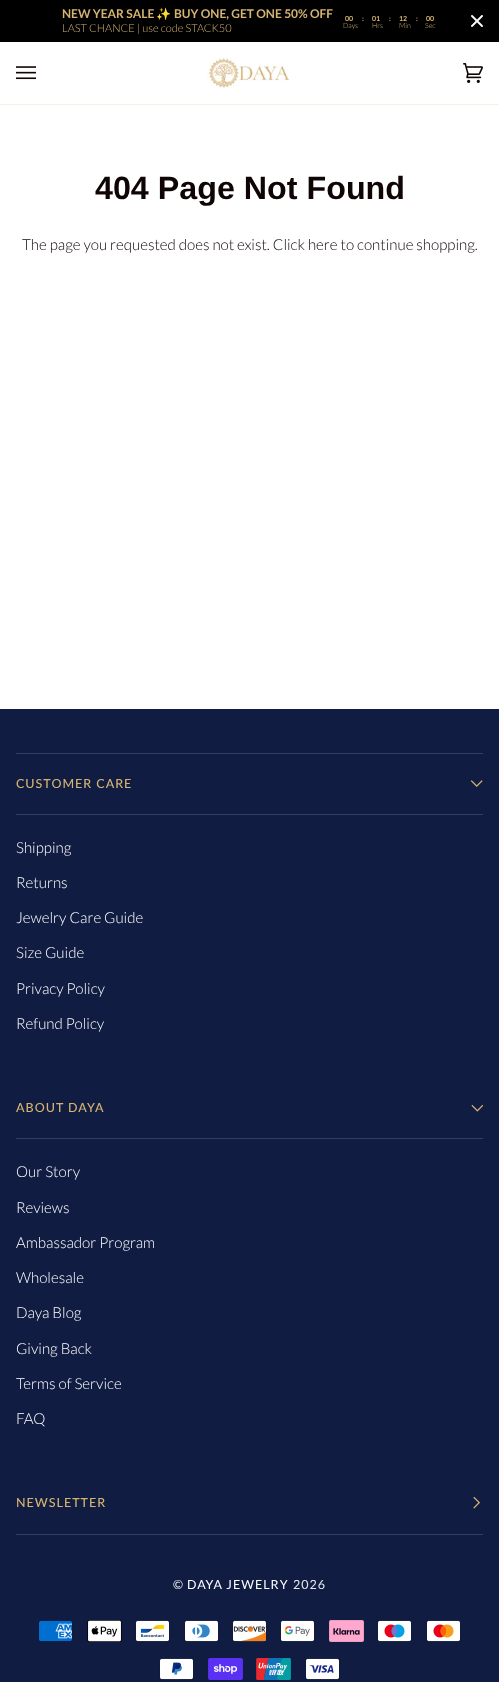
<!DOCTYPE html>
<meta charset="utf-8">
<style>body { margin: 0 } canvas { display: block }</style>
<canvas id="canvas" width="499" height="1682"></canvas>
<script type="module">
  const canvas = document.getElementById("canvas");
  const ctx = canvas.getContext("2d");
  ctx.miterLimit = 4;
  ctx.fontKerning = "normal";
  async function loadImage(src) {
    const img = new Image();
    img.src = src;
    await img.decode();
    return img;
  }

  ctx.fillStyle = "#ffffff";
  ctx.fillRect(0, 0, 499, 1682);
  ctx.fillStyle = "#000000";
  ctx.fillRect(0, 0, 499, 42);
  ctx.font = "bold 12px Lato";
  ctx.fillStyle = "#d5b472";
  ctx.fillText("NEW YEAR SALE", 62, 18);
  ctx.font = "bold 12px Noto Color Emoji";
  ctx.fillText("✨", 156, 18);
  ctx.font = "bold 12px Lato";
  ctx.fillText("BUY ONE, GET ONE 50% OFF", 174, 18);
  ctx.font = "300 11px Lato";
  ctx.fillText("LAST CHANCE | use code STACK50", 62, 32);
  ctx.font = "bold 7px Lato";
  ctx.fillText("00", 345, 21);
  ctx.fillText(":", 362, 21);
  ctx.fillText("01", 372, 21);
  ctx.fillText(":", 389, 21);
  ctx.fillText("12", 399, 21);
  ctx.fillText(":", 416, 21);
  ctx.fillText("00", 426, 21);
  ctx.font = "300 7px Lato";
  ctx.fillText("Days", 343, 28);
  ctx.fillText("Hrs", 372, 28);
  ctx.fillText("Min", 399, 28);
  ctx.fillText("Sec", 425, 28);
  ctx.drawImage(await loadImage("img1.png"), 471, 15, 12, 12);
  ctx.fillStyle = "#f8f0e7";
  ctx.fillRect(0, 104, 499, 1);
  ctx.drawImage(await loadImage("img2.png"), 16, 66, 20, 14);
  ctx.drawImage(await loadImage("img3.png"), 207, 57, 85, 31);
  ctx.drawImage(await loadImage("img4.png"), 463, 63, 20, 20);
  ctx.font = "bold 32.25px Liberation Sans";
  ctx.fillStyle = "#100505";
  ctx.fillText("404 Page Not Found", 95, 199);
  ctx.font = "300 15.15px Lato";
  ctx.fillText("The page you requested does not exist. Click here to continue shopping.", 22, 250);
  ctx.fillStyle = "#101c41";
  ctx.fillRect(0, 709, 499, 973);
  ctx.fillStyle = "#343e5e";
  ctx.fillRect(16, 753, 467, 1);
  ctx.fillRect(16, 814, 467, 1);
  ctx.letterSpacing = "1px";
  ctx.font = "500 12.5px Lato";
  ctx.fillStyle = "#d5b472";
  ctx.fillText("CUSTOMER CARE", 16, 788);
  ctx.drawImage(await loadImage("img5.png"), 470, 780, 13, 7);
  ctx.letterSpacing = "0px";
  ctx.font = "300 15.15px Lato";
  ctx.fillStyle = "#ffffff";
  ctx.fillText("Shipping", 16, 853);
  ctx.fillText("Returns", 16, 888);
  ctx.fillText("Jewelry Care Guide", 16, 923);
  ctx.fillText("Size Guide", 16, 958);
  ctx.fillText("Privacy Policy", 16, 994);
  ctx.fillText("Refund Policy", 16, 1029);
  ctx.fillStyle = "#343e5e";
  ctx.fillRect(16, 1138, 467, 1);
  ctx.letterSpacing = "1px";
  ctx.font = "500 12.5px Lato";
  ctx.fillStyle = "#d5b472";
  ctx.fillText("ABOUT DAYA", 16, 1112);
  ctx.drawImage(await loadImage("img6.png"), 471, 1104, 12, 8);
  ctx.letterSpacing = "0px";
  ctx.font = "300 15.15px Lato";
  ctx.fillStyle = "#ffffff";
  ctx.fillText("Our Story", 16, 1177);
  ctx.fillText("Reviews", 16, 1213);
  ctx.fillText("Ambassador Program", 16, 1248);
  ctx.fillText("Wholesale", 16, 1283);
  ctx.fillText("Daya Blog", 16, 1318);
  ctx.fillText("Giving Back", 16, 1354);
  ctx.fillText("Terms of Service", 16, 1389);
  ctx.fillText("FAQ", 16, 1424);
  ctx.fillStyle = "#343e5e";
  ctx.fillRect(16, 1534, 467, 1);
  ctx.letterSpacing = "1px";
  ctx.font = "500 12.5px Lato";
  ctx.fillStyle = "#d5b472";
  ctx.fillText("NEWSLETTER", 16, 1507);
  ctx.drawImage(await loadImage("img7.png"), 473, 1497, 7, 12);
  ctx.font = "12.5px Lato";
  ctx.fillStyle = "#e7e8ec";
  ctx.fillText("©", 173, 1589);
  ctx.fillStyle = "#ffffff";
  ctx.fillText("DAYA JEWELRY", 187, 1589);
  ctx.fillStyle = "#e7e8ec";
  ctx.fillText("2026", 293, 1589);
  ctx.drawImage(await loadImage("img8.png"), 38, 1620, 35, 22);
  ctx.drawImage(await loadImage("img9.png"), 87, 1620, 35, 22);
  ctx.drawImage(await loadImage("img10.png"), 135, 1620, 35, 22);
  ctx.drawImage(await loadImage("img11.png"), 184, 1620, 35, 22);
  ctx.drawImage(await loadImage("img12.png"), 232, 1620, 35, 22);
  ctx.drawImage(await loadImage("img13.png"), 280, 1620, 35, 22);
  ctx.drawImage(await loadImage("img14.png"), 329, 1620, 35, 22);
  ctx.drawImage(await loadImage("img15.png"), 377, 1620, 35, 22);
  ctx.drawImage(await loadImage("img16.png"), 426, 1620, 35, 22);
  ctx.drawImage(await loadImage("img17.png"), 159, 1658, 35, 22);
  ctx.drawImage(await loadImage("img18.png"), 208, 1658, 35, 22);
  ctx.drawImage(await loadImage("img19.png"), 256, 1658, 35, 22);
  ctx.drawImage(await loadImage("img20.png"), 305, 1658, 35, 22);
</script>
